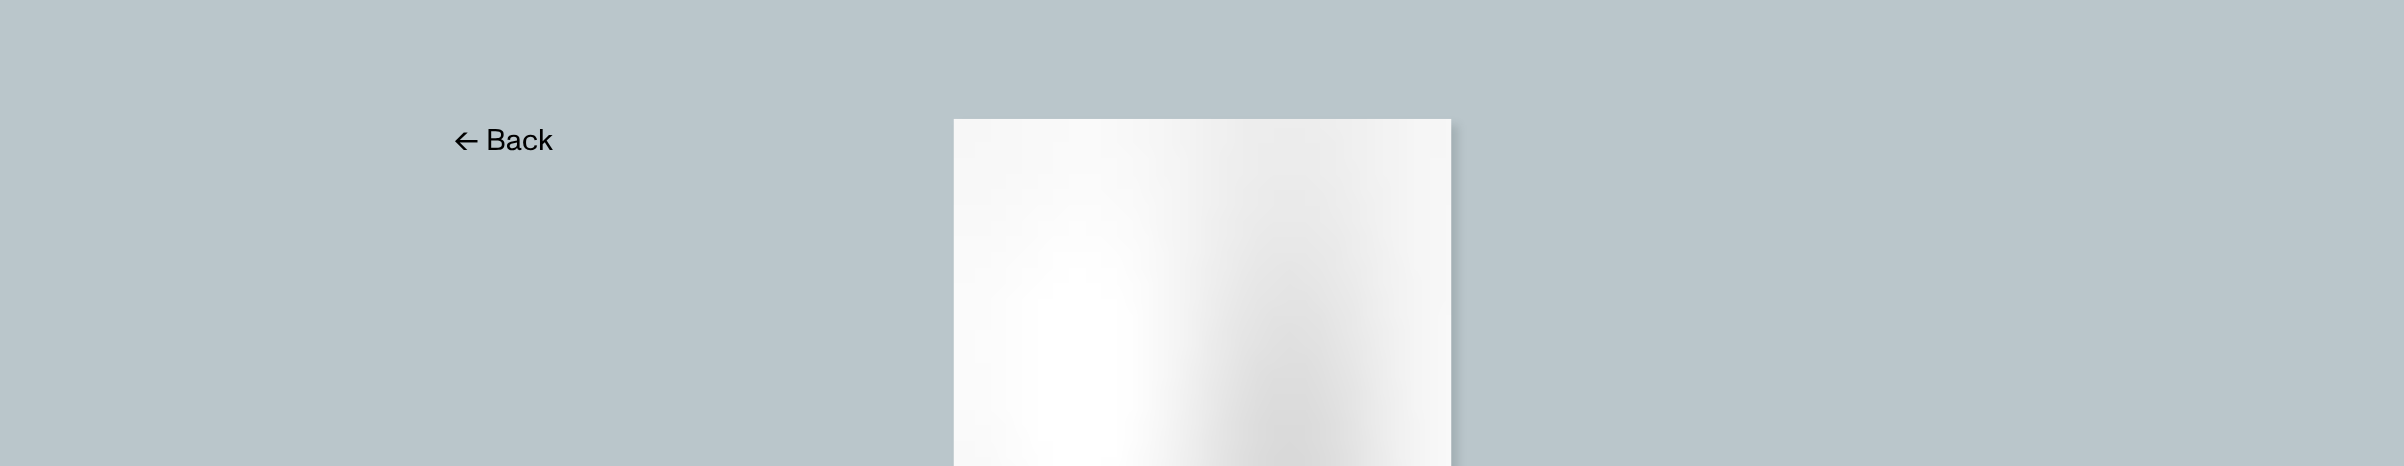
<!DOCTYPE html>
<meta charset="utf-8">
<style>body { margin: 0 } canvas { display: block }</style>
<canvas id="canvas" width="2404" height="466"></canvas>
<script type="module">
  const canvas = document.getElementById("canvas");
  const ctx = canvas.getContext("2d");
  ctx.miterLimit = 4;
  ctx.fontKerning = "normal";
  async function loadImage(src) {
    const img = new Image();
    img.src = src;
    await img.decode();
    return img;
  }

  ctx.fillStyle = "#bac6cb";
  ctx.fillRect(0, 0, 2404, 466);
  ctx.drawImage(await loadImage("img1.png"), 455, 132, 23, 18);
  ctx.font = "30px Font";
  ctx.fillStyle = "#000000";
  ctx.fillText("Back", 486, 150);
  ctx.fillStyle = "rgba(30, 44, 48, 0.15)";
  ctx.filter = "blur(4px)";
  ctx.beginPath();
  ctx.rect(960, 125, 498, 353);
  ctx.fill();
  ctx.filter = "none";
  ctx.drawImage(await loadImage("img2.png"), 953, 118, 499, 348);
</script>
